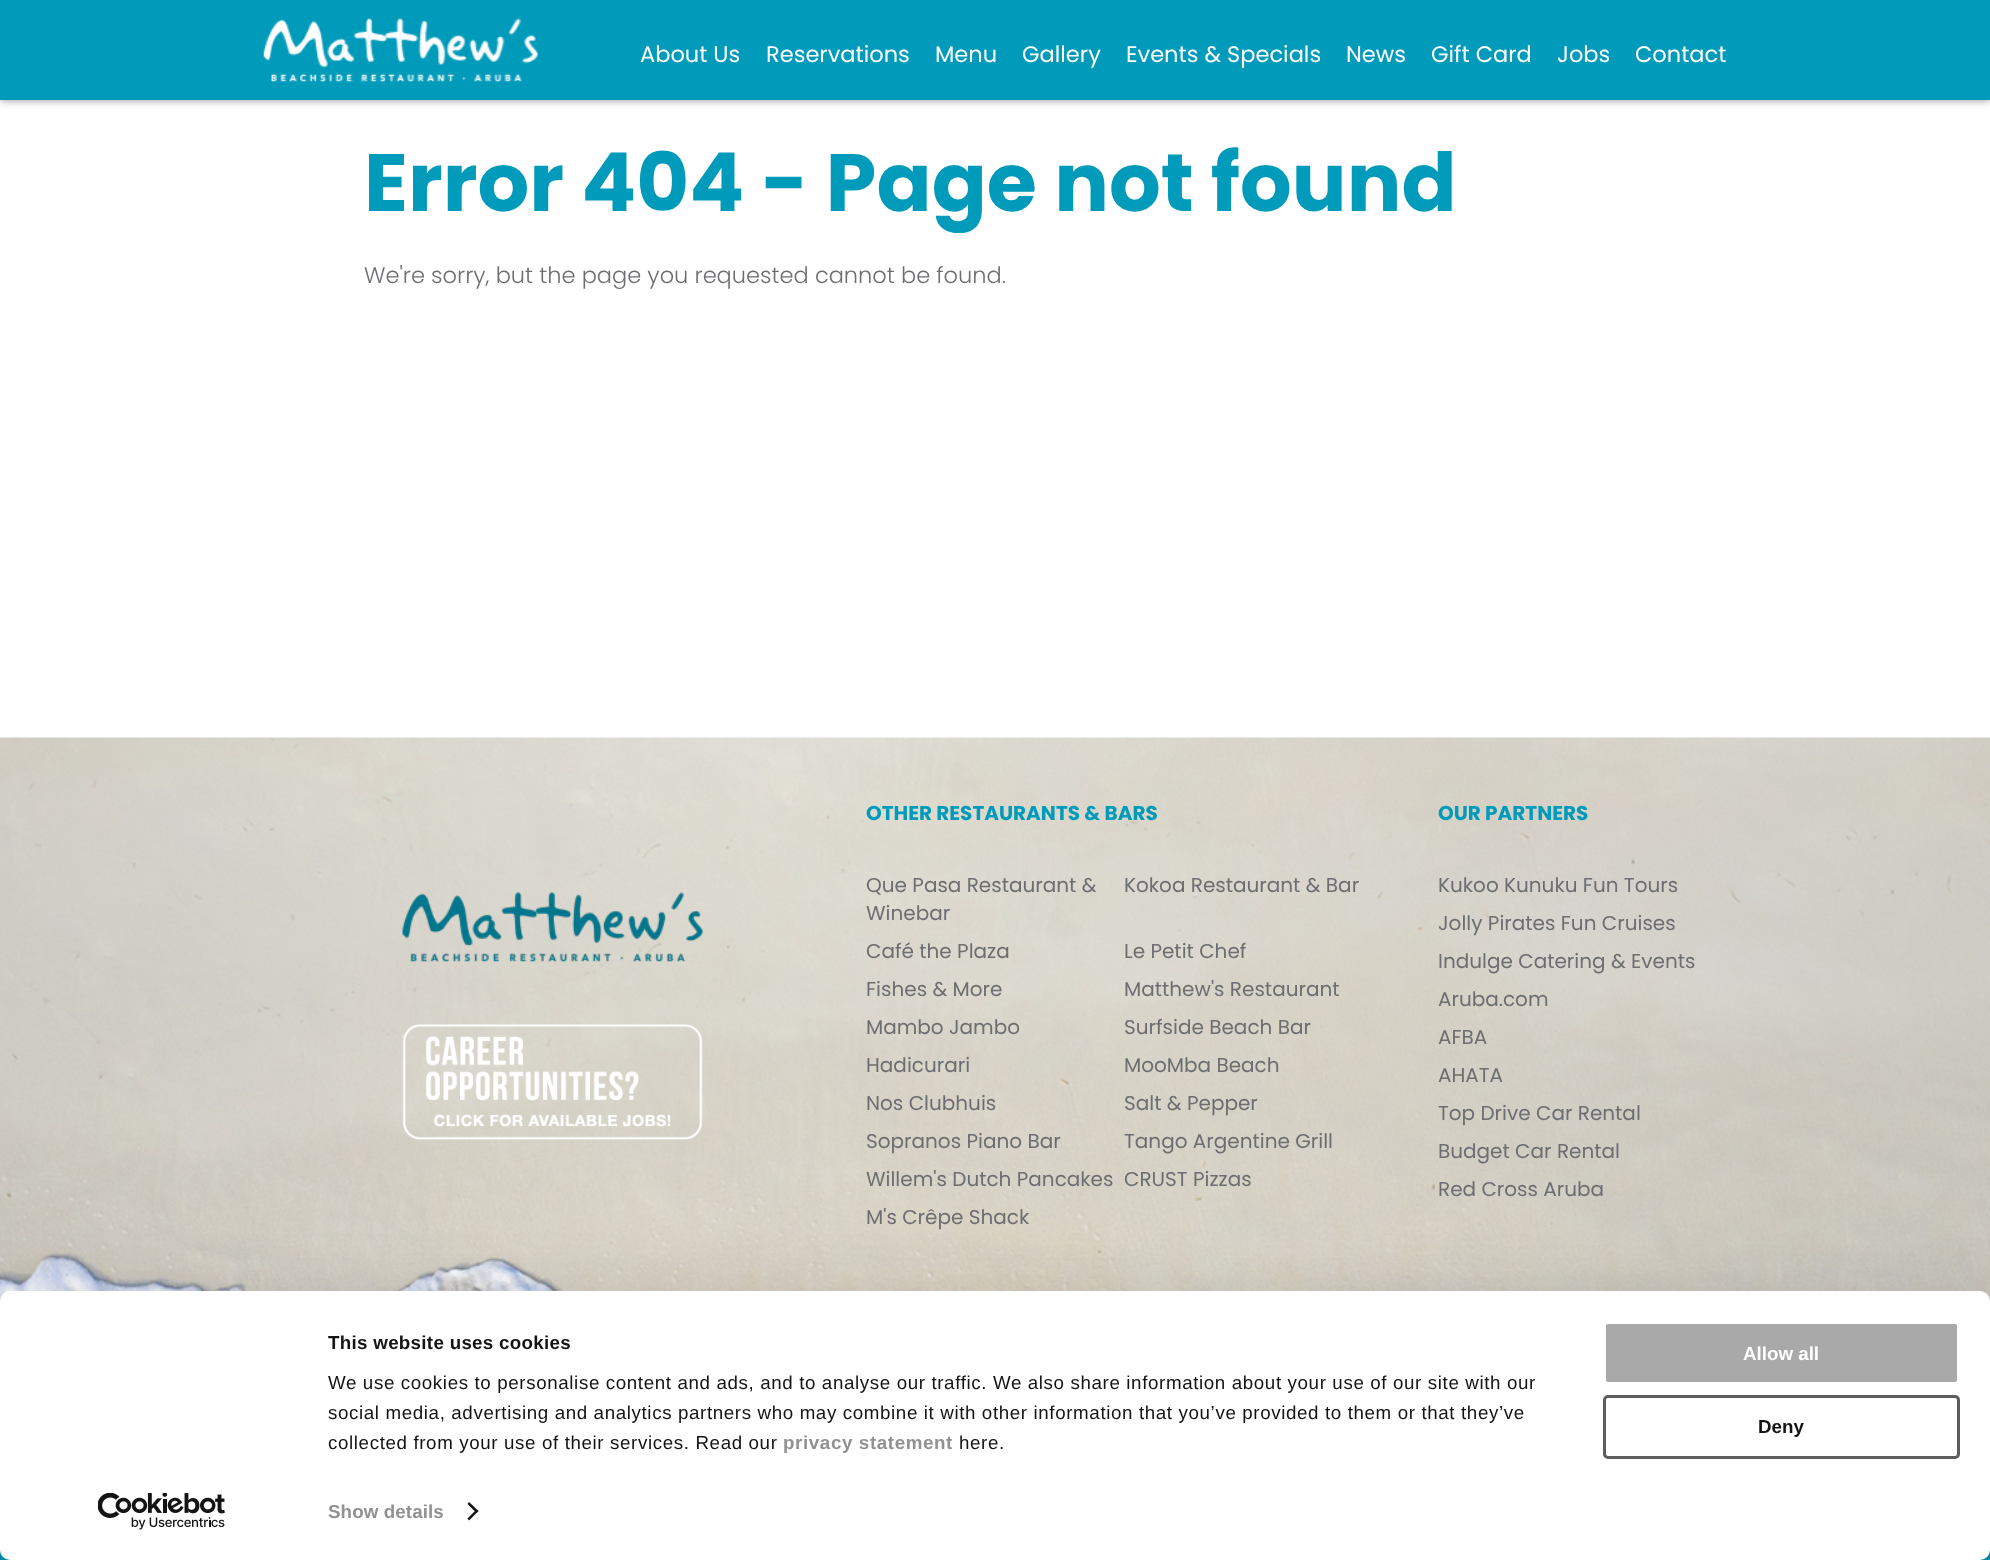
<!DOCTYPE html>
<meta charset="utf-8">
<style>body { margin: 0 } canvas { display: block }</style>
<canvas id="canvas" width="1990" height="1560"></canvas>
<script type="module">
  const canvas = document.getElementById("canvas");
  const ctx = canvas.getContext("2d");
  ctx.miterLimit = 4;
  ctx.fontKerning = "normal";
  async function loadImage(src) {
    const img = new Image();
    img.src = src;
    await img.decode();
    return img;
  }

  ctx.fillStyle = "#ffffff";
  ctx.fillRect(0, 0, 1990, 1560);
  ctx.fillStyle = "#8e8e8e";
  ctx.filter = "blur(4.5px)";
  ctx.beginPath();
  ctx.rect(0, 0, 1990, 100);
  ctx.fill();
  ctx.filter = "none";
  ctx.fillStyle = "#009bba";
  ctx.fillRect(0, 0, 1990, 100);
  ctx.drawImage(await loadImage("img1.png"), 263, 18, 275, 64);
  ctx.font = "22.5px Poppins";
  ctx.fillStyle = "#ffffff";
  ctx.fillText("About Us", 640, 62);
  ctx.fillText("Reservations", 766, 62);
  ctx.fillText("Menu", 935, 62);
  ctx.fillText("Gallery", 1022, 62);
  ctx.fillText("Events & Specials", 1126, 62);
  ctx.fillText("News", 1346, 62);
  ctx.fillText("Gift Card", 1431, 62);
  ctx.fillText("Jobs", 1557, 62);
  ctx.fillText("Contact", 1635, 62);
  ctx.save();
  ctx.beginPath();
  ctx.rect(364, 135, 1262, 98);
  ctx.clip();
  ctx.font = "bold 81.25px Poppins";
  ctx.fillStyle = "#009bba";
  ctx.fillText("Error 404 - Page not found", 364, 211);
  ctx.restore();
  ctx.font = "300 22.5px Poppins";
  ctx.fillStyle = "#6d6e71";
  ctx.fillText("We're sorry, but the page you requested cannot be found.", 364, 283);
  ctx.drawImage(await loadImage("img2.png"), 0, 737, 1990, 564);
  ctx.drawImage(await loadImage("img3.png"), 402, 892, 301, 70);
  ctx.drawImage(await loadImage("img4.png"), 402, 1024, 301, 116);
  ctx.font = "bold 20px Poppins";
  ctx.fillStyle = "#009bba";
  ctx.fillText("OTHER RESTAURANTS & BARS", 866, 820);
  ctx.font = "20px Poppins";
  ctx.fillStyle = "#6d6e71";
  ctx.fillText("Que Pasa Restaurant &", 866, 892);
  ctx.fillText("Winebar", 866, 920);
  ctx.fillText("Kokoa Restaurant & Bar", 1124, 892);
  ctx.fillText("Café the Plaza", 866, 958);
  ctx.fillText("Le Petit Chef", 1124, 958);
  ctx.fillText("Fishes & More", 866, 996);
  ctx.fillText("Matthew's Restaurant", 1124, 996);
  ctx.fillText("Mambo Jambo", 866, 1034);
  ctx.fillText("Surfside Beach Bar", 1124, 1034);
  ctx.fillText("Hadicurari", 866, 1072);
  ctx.fillText("MooMba Beach", 1124, 1072);
  ctx.fillText("Nos Clubhuis", 866, 1110);
  ctx.fillText("Salt & Pepper", 1124, 1110);
  ctx.fillText("Sopranos Piano Bar", 866, 1148);
  ctx.fillText("Tango Argentine Grill", 1124, 1148);
  ctx.fillText("Willem's Dutch Pancakes", 866, 1186);
  ctx.fillText("CRUST Pizzas", 1124, 1186);
  ctx.fillText("M's Crêpe Shack", 866, 1224);
  ctx.font = "bold 20px Poppins";
  ctx.fillStyle = "#009bba";
  ctx.fillText("OUR PARTNERS", 1438, 820);
  ctx.font = "20px Poppins";
  ctx.fillStyle = "#6d6e71";
  ctx.fillText("Kukoo Kunuku Fun Tours", 1438, 892);
  ctx.fillText("Jolly Pirates Fun Cruises", 1438, 930);
  ctx.fillText("Indulge Catering & Events", 1438, 968);
  ctx.fillText("Aruba.com", 1438, 1006);
  ctx.fillText("AFBA", 1438, 1044);
  ctx.fillText("AHATA", 1438, 1082);
  ctx.fillText("Top Drive Car Rental", 1438, 1120);
  ctx.fillText("Budget Car Rental", 1438, 1158);
  ctx.fillText("Red Cross Aruba", 1438, 1196);
  ctx.fillStyle = "#009bba";
  ctx.fillRect(0, 1550, 1990, 10);
  ctx.fillStyle = "rgba(0, 0, 0, 0.3)";
  ctx.filter = "blur(44px)";
  ctx.beginPath();
  ctx.roundRect(0, 1329, 1990, 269, 10);
  ctx.fill();
  ctx.filter = "none";
  ctx.fillStyle = "#ffffff";
  ctx.beginPath();
  ctx.roundRect(0, 1291, 1990, 269, 10);
  ctx.fill();
  ctx.letterSpacing = "0.3px";
  ctx.font = "bold 18.75px Liberation Sans";
  ctx.fillStyle = "#141414";
  ctx.fillText("This website uses cookies", 328, 1349);
  ctx.letterSpacing = "0.62px";
  ctx.font = "18.75px Liberation Sans";
  ctx.fillText("We use cookies to personalise content and ads, and to analyse our traffic. We also share information about your use of our site with our", 328, 1389);
  ctx.fillText("social media, advertising and analytics partners who may combine it with other information that you’ve provided to them or that they’ve", 328, 1419);
  ctx.fillText("collected from your use of their services. Read our", 328, 1449);
  ctx.font = "bold 18.75px Liberation Sans";
  ctx.fillStyle = "#919191";
  ctx.fillText("privacy statement", 783, 1449);
  ctx.font = "18.75px Liberation Sans";
  ctx.fillStyle = "#141414";
  ctx.fillText("here.", 959, 1449);
  ctx.letterSpacing = "0.1px";
  ctx.font = "bold 18.75px Liberation Sans";
  ctx.fillStyle = "#919191";
  ctx.fillText("Show details", 328, 1518);
  ctx.fillStyle = "#141414";
  ctx.beginPath();
  ctx.moveTo(469, 1502);
  ctx.lineTo(478.5, 1511);
  ctx.lineTo(476.5, 1513);
  ctx.lineTo(467.5, 1504);
  ctx.closePath();
  ctx.fill();
  ctx.beginPath();
  ctx.moveTo(476.5, 1509.5);
  ctx.lineTo(478.5, 1511);
  ctx.lineTo(469, 1520.5);
  ctx.lineTo(467.5, 1518.5);
  ctx.closePath();
  ctx.fill();
  ctx.fillStyle = "#a9a9a9";
  ctx.beginPath();
  ctx.roundRect(1604.5, 1322.5, 354, 61, 3.5);
  ctx.fill();
  ctx.strokeStyle = "#ffffff";
  ctx.lineWidth = 3;
  ctx.stroke();
  ctx.letterSpacing = "0px";
  ctx.fillStyle = "#ffffff";
  ctx.fillText("Allow all", 1743, 1360);
  ctx.beginPath();
  ctx.roundRect(1604.5, 1396.5, 354, 61, 3.5);
  ctx.strokeStyle = "#5e5e5e";
  ctx.stroke();
  ctx.fillStyle = "#141414";
  ctx.fillText("Deny", 1758, 1433);
  ctx.drawImage(await loadImage("img5.png"), 98, 1493, 127, 37);
</script>
